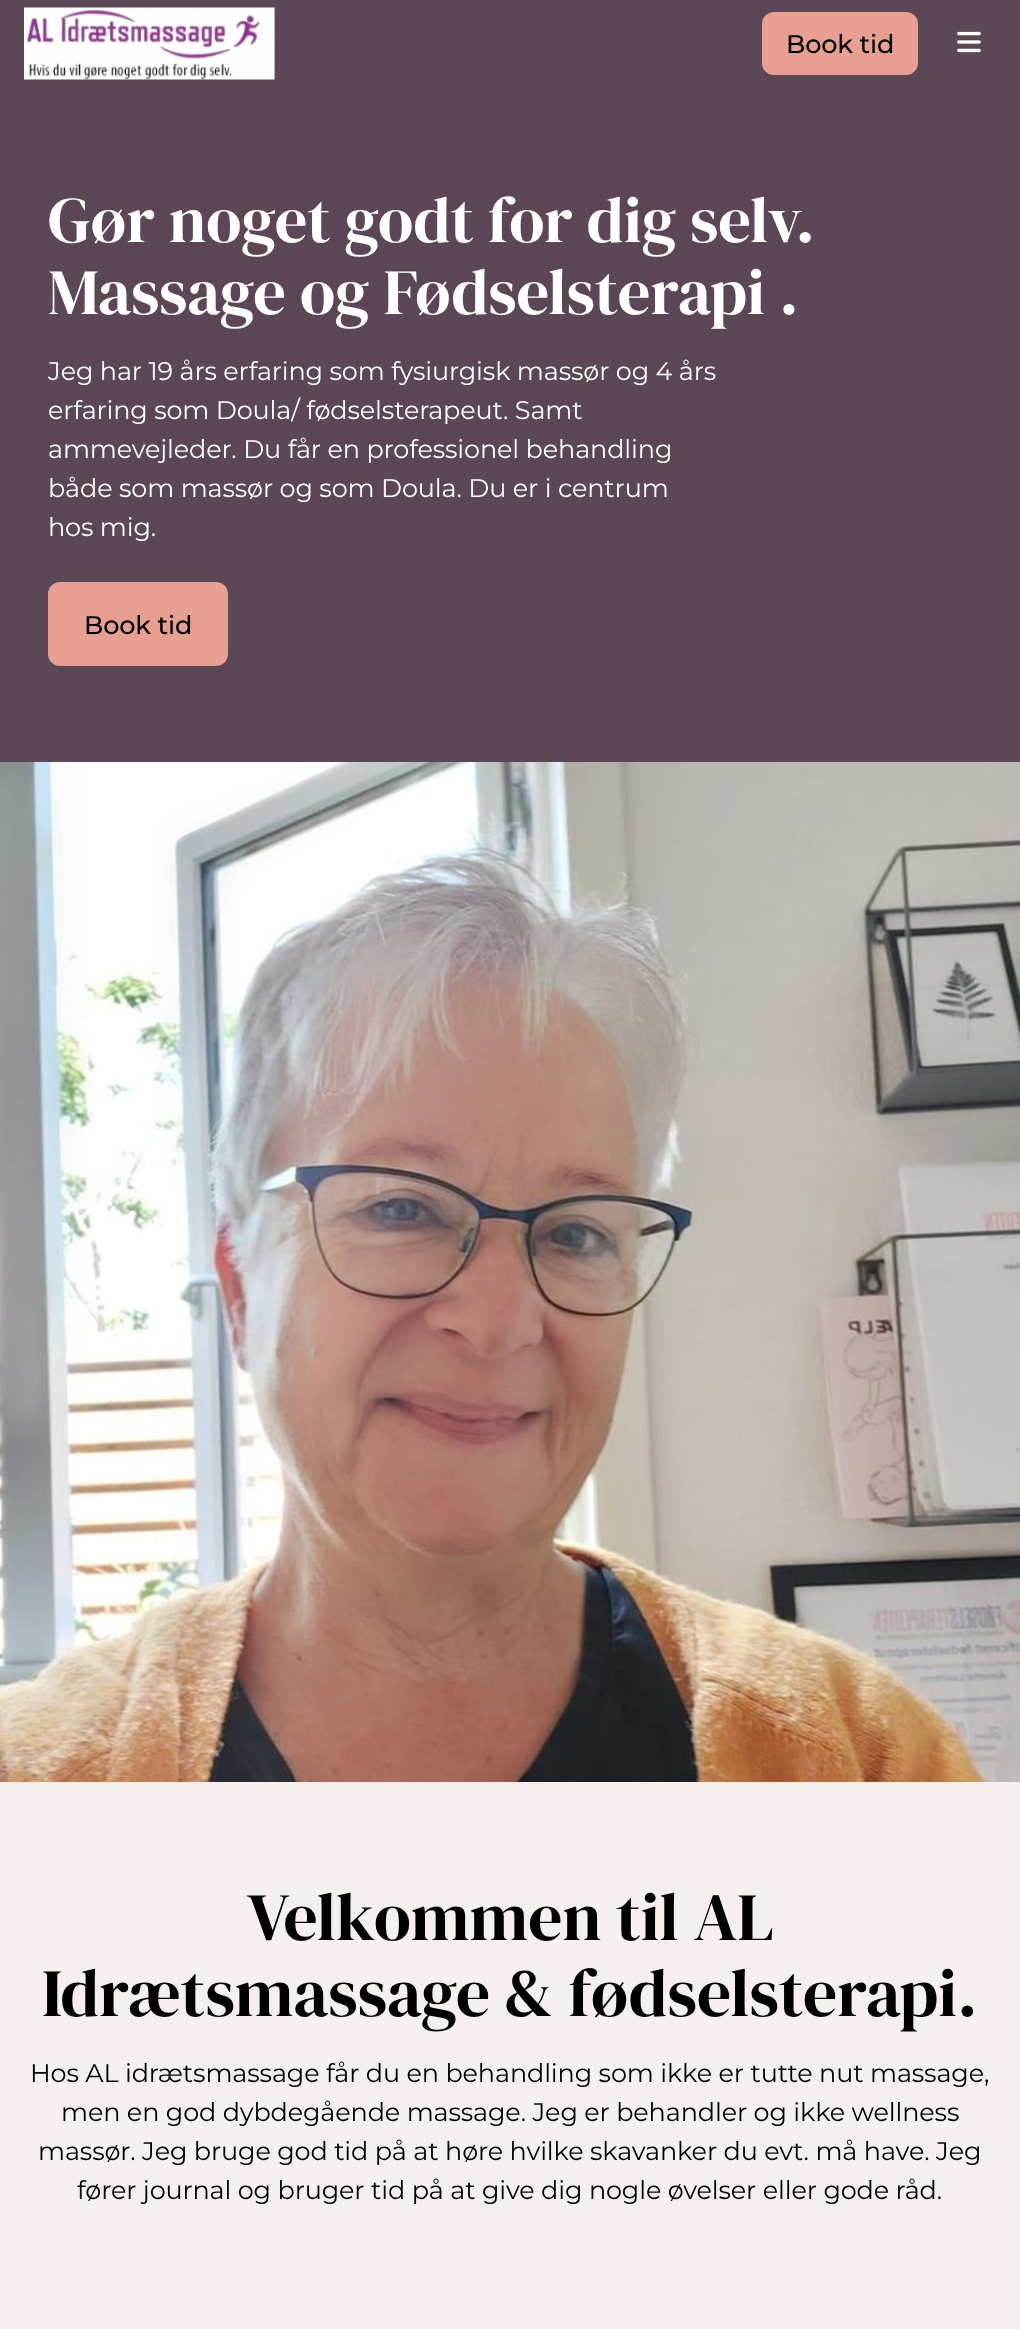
<!DOCTYPE html>
<meta charset="utf-8">
<style>body { margin: 0 } canvas { display: block }</style>
<canvas id="canvas" width="1020" height="2329"></canvas>
<script type="module">
  const canvas = document.getElementById("canvas");
  const ctx = canvas.getContext("2d");
  ctx.miterLimit = 4;
  ctx.fontKerning = "normal";
  async function loadImage(src) {
    const img = new Image();
    img.src = src;
    await img.decode();
    return img;
  }

  ctx.fillStyle = "#5b4756";
  ctx.fillRect(0, 0, 1020, 2329);
  ctx.drawImage(await loadImage("img1.png"), 24, 7, 251, 73);
  ctx.fillStyle = "#e89f93";
  ctx.beginPath();
  ctx.roundRect(762, 12, 156, 63, 12);
  ctx.fill();
  ctx.letterSpacing = "-0.13px";
  ctx.font = "500 25.5px Montserrat";
  ctx.fillStyle = "#000000";
  ctx.fillText("Book tid", 786, 53);
  ctx.drawImage(await loadImage("img2.png"), 957, 31, 24, 22);
  ctx.letterSpacing = "0px";
  ctx.font = "64.5px DM Serif Display";
  ctx.fillStyle = "#ffffff";
  ctx.fillText("Gør noget godt for dig selv.", 48, 242);
  ctx.fillText("Massage og Fødselsterapi .", 48, 314);
  ctx.letterSpacing = "-0.13px";
  ctx.font = "25.5px Montserrat";
  ctx.fillText("Jeg har 19 års erfaring som fysiurgisk massør og 4 års", 48, 380);
  ctx.fillText("erfaring som Doula/ fødselsterapeut. Samt", 48, 419);
  ctx.fillText("ammevejleder. Du får en professionel behandling", 48, 458);
  ctx.fillText("både som massør og som Doula. Du er i centrum", 48, 497);
  ctx.fillText("hos mig.", 48, 536);
  ctx.fillStyle = "#e89f93";
  ctx.beginPath();
  ctx.roundRect(48, 582, 180, 84, 12);
  ctx.fill();
  ctx.font = "500 25.5px Montserrat";
  ctx.fillStyle = "#000000";
  ctx.fillText("Book tid", 84, 634);
  ctx.drawImage(await loadImage("img3.png"), 0, 762, 1020, 1020);
  ctx.fillStyle = "#f5efed";
  ctx.fillRect(0, 1782, 1020, 547);
  ctx.letterSpacing = "0px";
  ctx.font = "67.5px DM Serif Display";
  ctx.fillStyle = "#000000";
  ctx.fillText("Velkommen til AL", 247, 1940);
  ctx.fillText("Idrætsmassage & fødselsterapi.", 42, 2016);
  ctx.letterSpacing = "-0.13px";
  ctx.font = "25.5px Montserrat";
  ctx.fillText("Hos AL idrætsmassage får du en behandling som ikke er tutte nut massage,", 30, 2082);
  ctx.fillText("men en god dybdegående massage. Jeg er behandler og ikke wellness", 61, 2121);
  ctx.fillText("massør. Jeg bruge god tid på at høre hvilke skavanker du evt. må have. Jeg", 38, 2160);
  ctx.fillText("fører journal og bruger tid på at give dig nogle øvelser eller gode råd.", 77, 2199);
</script>
